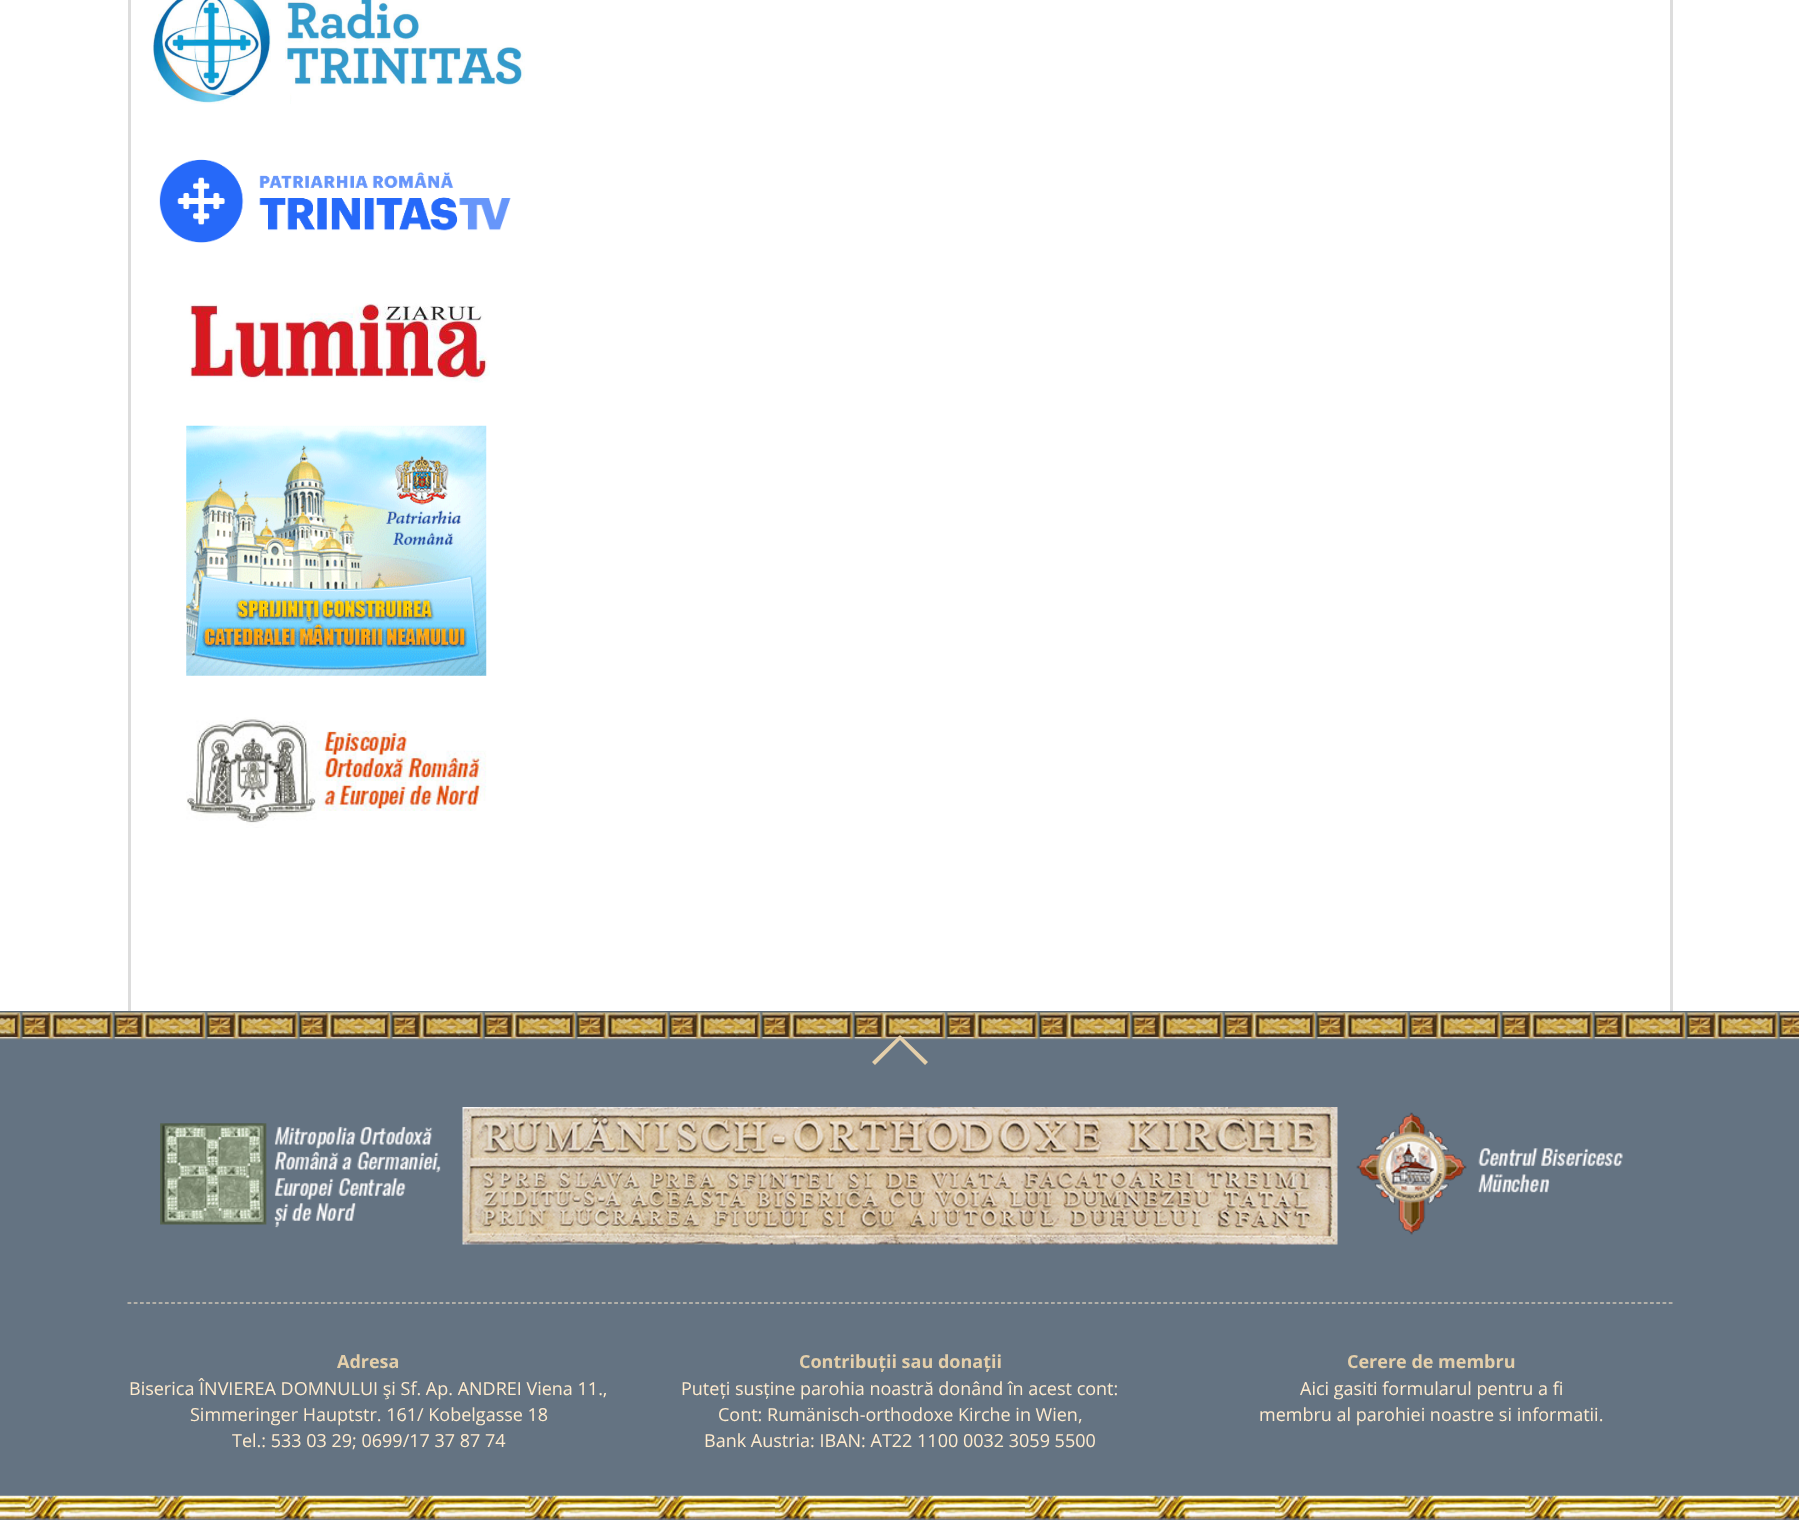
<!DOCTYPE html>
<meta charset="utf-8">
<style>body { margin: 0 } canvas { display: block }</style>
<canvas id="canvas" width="1799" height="1520"></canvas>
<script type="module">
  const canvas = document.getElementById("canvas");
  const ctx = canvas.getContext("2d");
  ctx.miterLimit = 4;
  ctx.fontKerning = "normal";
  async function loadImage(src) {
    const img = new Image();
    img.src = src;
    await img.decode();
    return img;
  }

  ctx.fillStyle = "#ffffff";
  ctx.fillRect(0, 0, 1799, 1520);
  ctx.fillStyle = "#dddddd";
  ctx.fillRect(1670, 0, 3, 1011);
  ctx.fillRect(128, 0, 3, 1011);
  ctx.drawImage(await loadImage("img1.png"), 153, 0, 372, 104);
  ctx.drawImage(await loadImage("img2.png"), 159, 159, 352, 84);
  ctx.drawImage(await loadImage("img3.png"), 189, 303, 301, 80);
  ctx.drawImage(await loadImage("img4.png"), 186, 425, 301, 251);
  ctx.drawImage(await loadImage("img5.png"), 186, 717, 301, 111);
  ctx.fillStyle = "#647382";
  ctx.fillRect(0, 1012, 1799, 508);
  ctx.drawImage(await loadImage("img6.png"), 0, 1012, 1799, 508);
  ctx.fillStyle = "#5a6875";
  ctx.fillRect(0, 1011, 1799, 1);
  ctx.fillStyle = "#e4cfaa";
  ctx.beginPath();
  ctx.moveTo(928, 1062);
  ctx.lineTo(925, 1065);
  ctx.lineTo(900, 1040);
  ctx.lineTo(875, 1065);
  ctx.lineTo(872, 1062);
  ctx.lineTo(900, 1035);
  ctx.closePath();
  ctx.fill();
  ctx.drawImage(await loadImage("img7.png"), 160, 1123, 281, 105);
  ctx.drawImage(await loadImage("img8.png"), 462, 1107, 876, 138);
  ctx.drawImage(await loadImage("img9.png"), 1356, 1112, 267, 123);
  ctx.beginPath();
  ctx.moveTo(127.5, 1303);
  ctx.lineTo(1672.5, 1303);
  ctx.strokeStyle = "#ffebcd";
  ctx.lineWidth = 1.2;
  ctx.setLineDash([3.75, 2.49]);
  ctx.stroke();
  ctx.font = "bold 18px Open Sans";
  ctx.fillText("Adresa", 337, 1368);
  ctx.font = "18px Open Sans";
  ctx.fillStyle = "#ffebcd";
  ctx.fillText("Biserica ÎNVIEREA DOMNULUI şi Sf. Ap. ANDREI Viena 11.,", 129, 1395);
  ctx.fillText("Simmeringer Hauptstr. 161/ Kobelgasse 18", 190, 1421);
  ctx.fillText("Tel.: 533 03 29; 0699/17 37 87 74", 232, 1447);
  ctx.font = "bold 18px Open Sans";
  ctx.fillStyle = "#e4cfaa";
  ctx.fillText("Contribuții sau donații", 799, 1368);
  ctx.font = "18px Open Sans";
  ctx.fillStyle = "#ffebcd";
  ctx.fillText("Puteți susține parohia noastră donând în acest cont:", 681, 1395);
  ctx.fillText("Cont: Rumänisch-orthodoxe Kirche in Wien,", 718, 1421);
  ctx.fillText("Bank Austria: IBAN: AT22 1100 0032 3059 5500", 704, 1447);
  ctx.font = "bold 18px Open Sans";
  ctx.fillStyle = "#e4cfaa";
  ctx.fillText("Cerere de membru", 1347, 1368);
  ctx.font = "18px Open Sans";
  ctx.fillStyle = "#ffebcd";
  ctx.fillText("Aici gasiti formularul pentru a fi", 1300, 1395);
  ctx.fillText("membru al parohiei noastre si informatii.", 1259, 1421);
</script>
